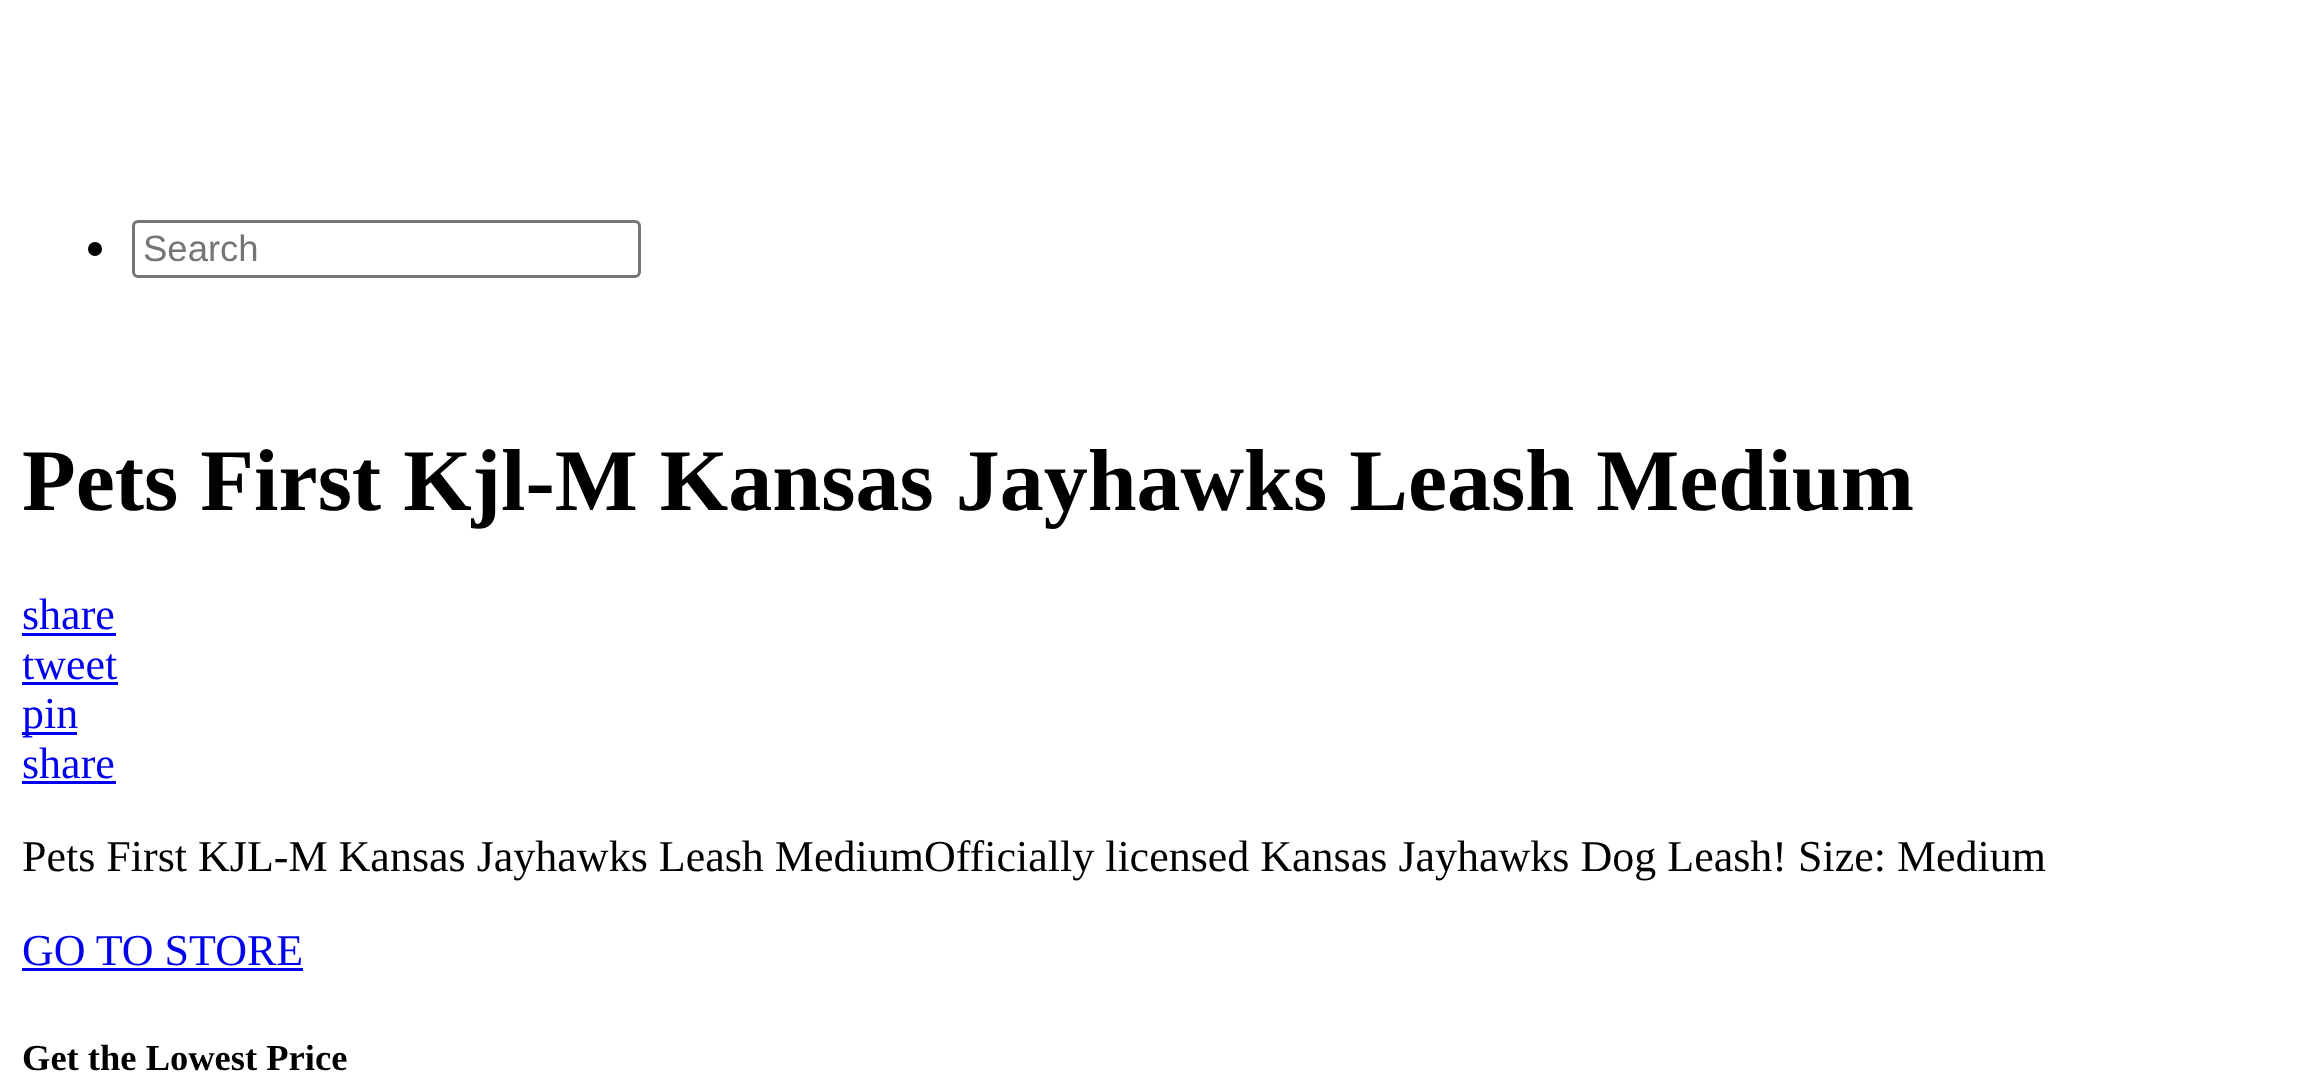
<!DOCTYPE html>
<meta charset="utf-8">
<style>body { margin: 0 } canvas { display: block }</style>
<canvas id="canvas" width="2303" height="1080"></canvas>
<script type="module">
  const canvas = document.getElementById("canvas");
  const ctx = canvas.getContext("2d");
  ctx.miterLimit = 4;
  ctx.fontKerning = "normal";

  ctx.fillStyle = "#ffffff";
  ctx.fillRect(0, 0, 2303, 1080);
  ctx.fillStyle = "#000000";
  ctx.beginPath();
  ctx.arc(95, 249, 7, 0, Math.PI * 2);
  ctx.fill();
  ctx.beginPath();
  ctx.roundRect(133.5, 221.5, 506, 55, 4.5);
  ctx.strokeStyle = "#767676";
  ctx.lineWidth = 3;
  ctx.stroke();
  ctx.font = "36.5px Liberation Sans";
  ctx.fillStyle = "#757575";
  ctx.fillText("Search", 143, 261);
  ctx.font = "bold 88px Liberation Serif";
  ctx.fillStyle = "#000000";
  ctx.fillText("Pets First Kjl-M Kansas Jayhawks Leash Medium", 22, 510);
  ctx.font = "44px Liberation Serif";
  ctx.fillStyle = "#0000ee";
  ctx.fillText("share", 22, 629);
  ctx.fillRect(22, 633, 94, 3);
  ctx.fillText("tweet", 22, 679);
  ctx.fillRect(22, 682, 96, 3);
  ctx.fillRect(22, 732, 55, 3);
  ctx.fillText("pin", 22, 728);
  ctx.fillText("share", 22, 778);
  ctx.fillRect(22, 781, 94, 3);
  ctx.fillStyle = "#000000";
  ctx.fillText("Pets First KJL-M Kansas Jayhawks Leash MediumOfficially licensed Kansas Jayhawks Dog Leash! Size: Medium", 22, 871);
  ctx.fillStyle = "#0000ee";
  ctx.fillText("GO TO STORE", 22, 965);
  ctx.fillRect(22, 968, 281, 3);
  ctx.font = "bold 36.5px Liberation Serif";
  ctx.fillStyle = "#000000";
  ctx.fillText("Get the Lowest Price", 22, 1070);
</script>
